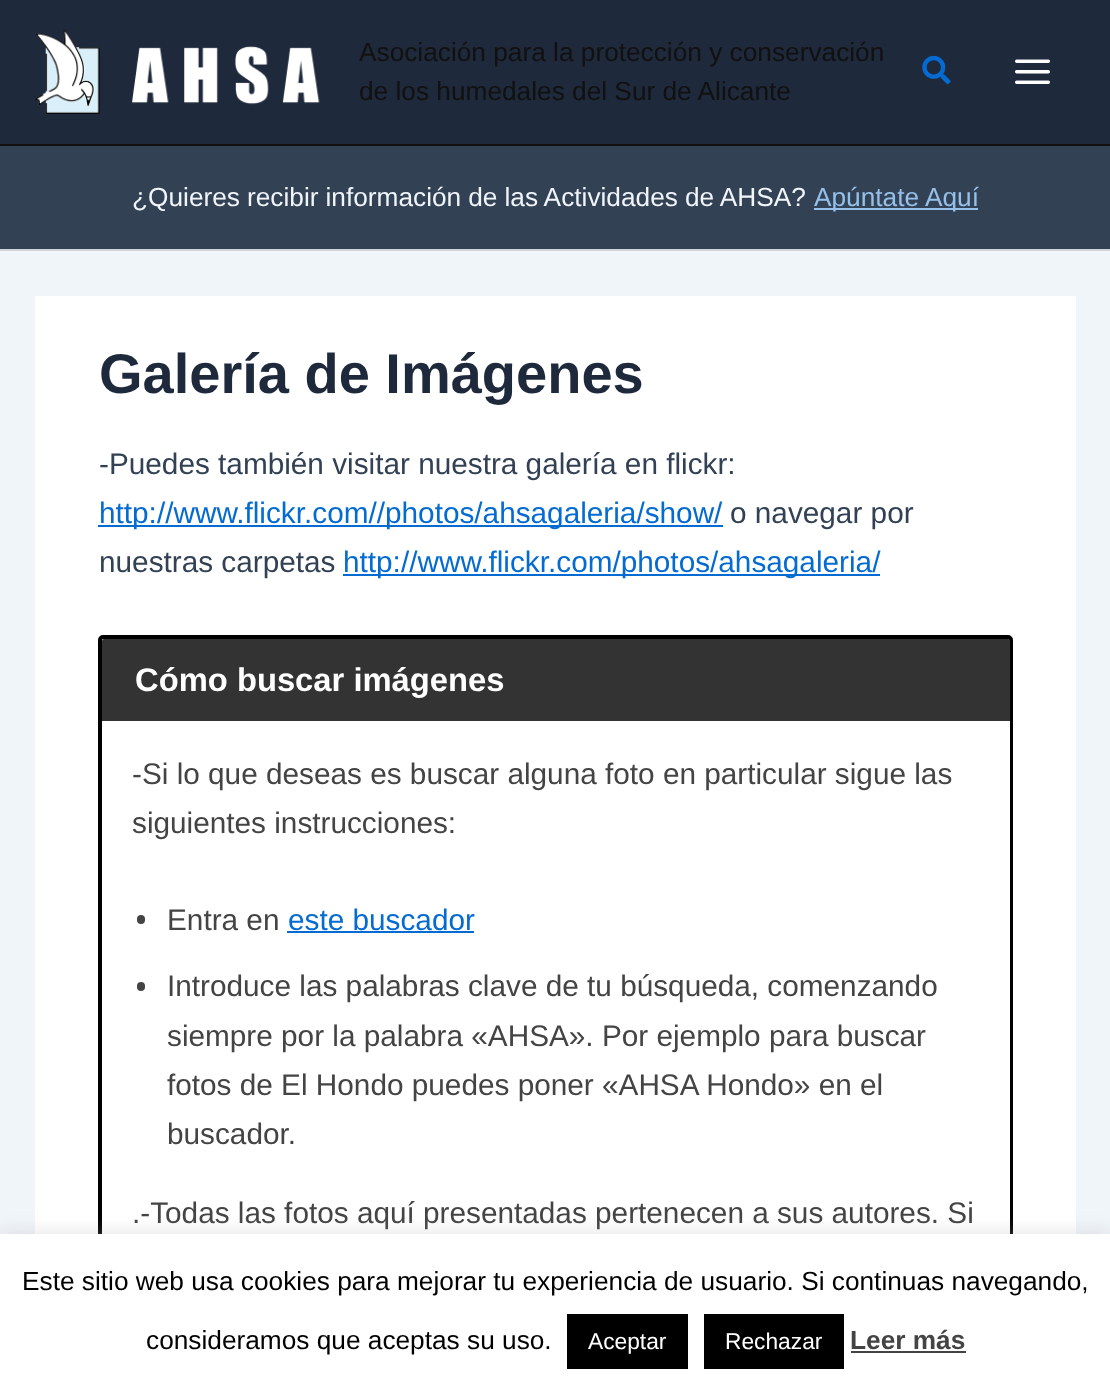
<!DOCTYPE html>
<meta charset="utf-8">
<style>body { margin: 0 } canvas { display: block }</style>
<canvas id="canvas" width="1110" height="1388"></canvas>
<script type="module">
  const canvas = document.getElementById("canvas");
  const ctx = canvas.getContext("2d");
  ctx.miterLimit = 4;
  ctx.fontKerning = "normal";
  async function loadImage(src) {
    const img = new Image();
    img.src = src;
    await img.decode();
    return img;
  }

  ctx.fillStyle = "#f0f5fa";
  ctx.fillRect(0, 0, 1110, 1388);
  ctx.fillStyle = "#1e293b";
  ctx.fillRect(0, 0, 1110, 144);
  ctx.fillStyle = "#111111";
  ctx.fillRect(0, 144, 1110, 2);
  ctx.drawImage(await loadImage("img1.png"), 35, 29, 285, 85);
  ctx.font = "26.25px Liberation Sans";
  ctx.fillText("Asociación para la protección y conservación", 359, 61);
  ctx.fillText("de los humedales del Sur de Alicante", 359, 100);
  ctx.drawImage(await loadImage("img2.png"), 922, 55, 29, 30);
  ctx.drawImage(await loadImage("img3.png"), 1015, 59, 35, 25);
  ctx.fillStyle = "#334155";
  ctx.fillRect(0, 146, 1110, 103);
  ctx.fillStyle = "#d1d5db";
  ctx.fillRect(0, 249, 1110, 2);
  ctx.wordSpacing = "-0.25px";
  ctx.fillStyle = "#f0f5fa";
  ctx.fillText("¿Quieres recibir información de las Actividades de AHSA?", 132, 206);
  ctx.fillStyle = "#95c0ea";
  ctx.fillRect(814, 208, 164, 2);
  ctx.wordSpacing = "0px";
  ctx.fillText("Apúntate Aquí", 814, 206);
  ctx.fillStyle = "#ffffff";
  ctx.fillRect(35, 296, 1041, 938);
  ctx.font = "bold 56px Liberation Sans";
  ctx.fillStyle = "#1e293b";
  ctx.fillText("Galería de Imágenes", 99, 393);
  ctx.font = "29.75px Liberation Sans";
  ctx.fillStyle = "#334155";
  ctx.fillText("-Puedes también visitar nuestra galería en flickr:", 99, 474);
  ctx.fillStyle = "#046bd2";
  ctx.fillRect(98, 525, 625, 2);
  ctx.fillText("http://www.flickr.com//photos/ahsagaleria/show/", 99, 523);
  ctx.fillStyle = "#334155";
  ctx.fillText("o navegar por", 730, 523);
  ctx.fillText("nuestras carpetas", 99, 572);
  ctx.fillStyle = "#046bd2";
  ctx.fillRect(343, 574, 537, 2);
  ctx.fillText("http://www.flickr.com/photos/ahsagaleria/", 343, 572);
  ctx.beginPath();
  ctx.roundRect(100, 637, 911, 731, 3);
  ctx.strokeStyle = "#000000";
  ctx.lineWidth = 4;
  ctx.stroke();
  ctx.fillStyle = "#333333";
  ctx.beginPath();
  ctx.roundRect(102, 639, 908, 82, [2, 2, 0, 0]);
  ctx.fill();
  ctx.font = "bold 32.75px Liberation Sans";
  ctx.fillStyle = "#ffffff";
  ctx.fillText("Cómo buscar imágenes", 135, 691);
  ctx.fillRect(1009, 721, 1, 513);
  ctx.font = "29.75px Liberation Sans";
  ctx.fillStyle = "#444444";
  ctx.fillText("-Si lo que deseas es buscar alguna foto en particular sigue las", 132, 784);
  ctx.fillText("siguientes instrucciones:", 132, 833);
  ctx.beginPath();
  ctx.roundRect(137, 915, 8, 9, 4);
  ctx.fill();
  ctx.fillText("Entra en", 167, 930);
  ctx.fillStyle = "#046bd2";
  ctx.fillText("este buscador", 288, 930);
  ctx.fillRect(287, 931, 187, 2);
  ctx.fillStyle = "#444444";
  ctx.beginPath();
  ctx.roundRect(137, 982, 8, 9, 4);
  ctx.fill();
  ctx.fillText("Introduce las palabras clave de tu búsqueda, comenzando", 167, 996);
  ctx.fillText("siempre por la palabra «AHSA». Por ejemplo para buscar", 167, 1046);
  ctx.fillText("fotos de El Hondo puedes poner «AHSA Hondo» en el", 167, 1095);
  ctx.fillText("buscador.", 167, 1144);
  ctx.fillText(".-Todas las fotos aquí presentadas pertenecen a sus autores. Si", 132, 1223);
  ctx.fillStyle = "rgba(172, 171, 171, 0.3)";
  ctx.filter = "blur(9px)";
  ctx.beginPath();
  ctx.rect(0, 1232, 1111, 156);
  ctx.fill();
  ctx.filter = "none";
  ctx.fillStyle = "#ffffff";
  ctx.fillRect(0, 1234, 1110, 154);
  ctx.font = "26.25px Liberation Sans";
  ctx.fillStyle = "#000000";
  ctx.fillText("Este sitio web usa cookies para mejorar tu experiencia de usuario. Si continuas navegando,", 22, 1290);
  ctx.fillText("consideramos que aceptas su uso.", 146, 1349);
  ctx.fillRect(567, 1314, 121, 55);
  ctx.font = "22.75px Liberation Sans";
  ctx.fillStyle = "#ffffff";
  ctx.fillText("Aceptar", 588, 1349);
  ctx.fillStyle = "#000000";
  ctx.fillRect(704, 1314, 140, 55);
  ctx.fillStyle = "#ffffff";
  ctx.fillText("Rechazar", 725, 1349);
  ctx.font = "bold 26.25px Liberation Sans";
  ctx.fillStyle = "#444444";
  ctx.fillText("Leer más", 850, 1349);
  ctx.fillRect(851, 1351, 115, 2);
</script>
